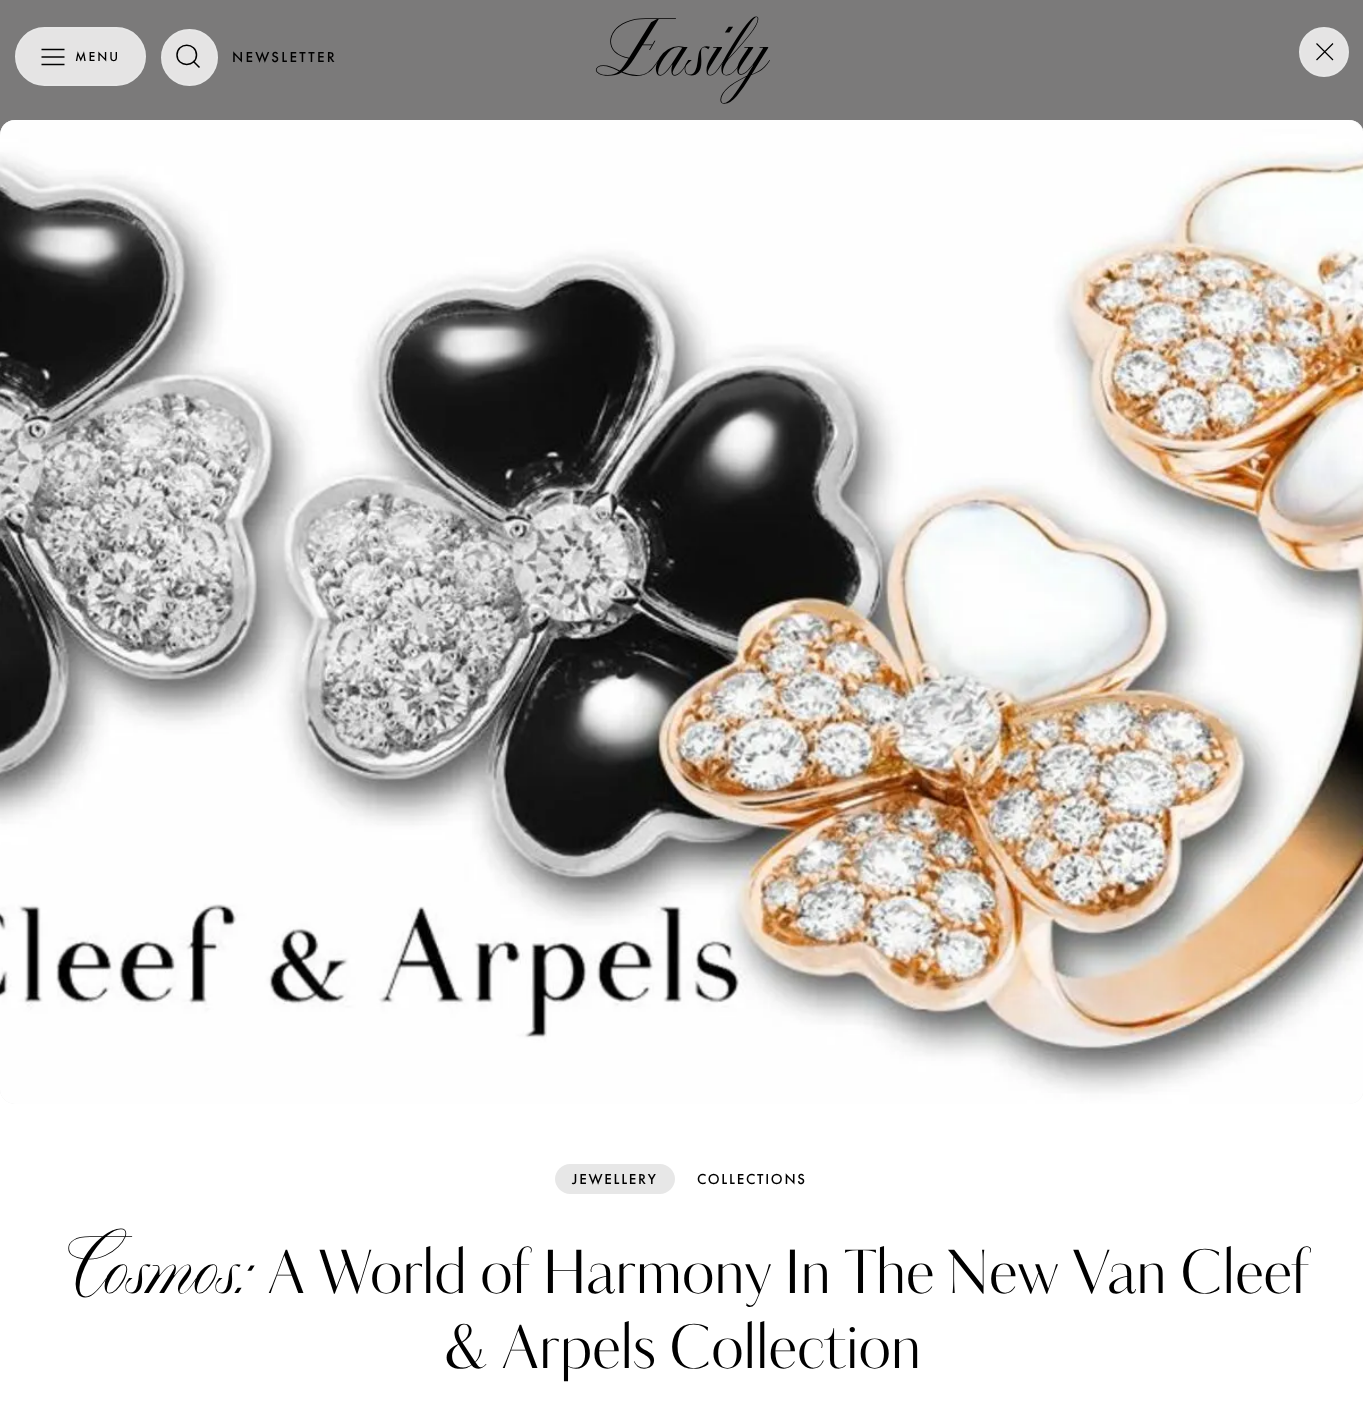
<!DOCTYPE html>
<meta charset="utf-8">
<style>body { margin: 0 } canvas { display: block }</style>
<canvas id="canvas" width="1363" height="1420"></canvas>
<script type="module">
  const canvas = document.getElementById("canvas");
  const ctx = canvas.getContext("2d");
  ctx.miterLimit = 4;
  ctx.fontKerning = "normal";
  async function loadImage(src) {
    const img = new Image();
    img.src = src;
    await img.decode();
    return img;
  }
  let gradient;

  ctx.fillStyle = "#7b7a7a";
  ctx.fillRect(0, 0, 1363, 1420);
  ctx.fillStyle = "#e5e4e4";
  ctx.beginPath();
  ctx.roundRect(16, 28, 129, 57, 28.5);
  ctx.fill();
  ctx.strokeStyle = "#e7e7e7";
  ctx.lineWidth = 2;
  ctx.stroke();
  ctx.beginPath();
  ctx.moveTo(41.5, 49.5);
  ctx.lineTo(64.5, 49.5);
  ctx.moveTo(41.5, 57);
  ctx.lineTo(64.5, 57);
  ctx.moveTo(41.5, 64.5);
  ctx.lineTo(64.5, 64.5);
  ctx.strokeStyle = "#000000";
  ctx.lineWidth = 1.5;
  ctx.stroke();
  ctx.letterSpacing = "2px";
  ctx.font = "500 13.5px Futura PT";
  ctx.fillStyle = "#000000";
  ctx.fillText("MENU", 75, 61);
  ctx.fillStyle = "#e5e4e4";
  ctx.beginPath();
  ctx.arc(189.5, 57.5, 27.5, 0, Math.PI * 2);
  ctx.fill();
  ctx.strokeStyle = "#e7e7e7";
  ctx.lineWidth = 2;
  ctx.stroke();
  ctx.beginPath();
  ctx.moveTo(193, 61);
  ctx.lineTo(199.5, 67.5);
  ctx.moveTo(196.5, 55);
  ctx.bezierCurveTo(196.5, 67.5, 177, 67.5, 177, 55);
  ctx.bezierCurveTo(177, 42, 196.5, 42, 196.5, 55);
  ctx.closePath();
  ctx.strokeStyle = "#000000";
  ctx.lineWidth = 1.5;
  ctx.stroke();
  ctx.letterSpacing = "2.25px";
  ctx.font = "500 15px Futura PT";
  ctx.fillStyle = "#000000";
  ctx.fillText("NEWSLETTER", 232, 62);
  ctx.fillStyle = "#e5e4e4";
  ctx.beginPath();
  ctx.arc(1324, 52, 24, 0, Math.PI * 2);
  ctx.fill();
  ctx.strokeStyle = "#e7e7e7";
  ctx.lineWidth = 2;
  ctx.stroke();
  ctx.beginPath();
  ctx.moveTo(1316.5, 43.5);
  ctx.lineTo(1333, 60);
  ctx.moveTo(1316.5, 60);
  ctx.lineTo(1333, 43.5);
  ctx.strokeStyle = "#000000";
  ctx.lineWidth = 1.2;
  ctx.stroke();
  ctx.letterSpacing = "0px";
  ctx.font = "82.5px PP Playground";
  ctx.fillStyle = "#000000";
  ctx.fillText("Easily", 596, 75);
  ctx.fillStyle = "#ffffff";
  ctx.beginPath();
  ctx.moveTo(15, 120);
  ctx.lineTo(1349, 120);
  ctx.bezierCurveTo(1357.5, 120, 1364, 126.5, 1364, 135);
  ctx.lineTo(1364, 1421);
  ctx.lineTo(0, 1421);
  ctx.lineTo(0, 135);
  ctx.bezierCurveTo(0, 126.5, 6.5, 120, 15, 120);
  ctx.closePath();
  ctx.fill();
  gradient = ctx.createLinearGradient(190, -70, 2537, 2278);
  gradient.addColorStop(0.25, "#ebebeb");
  gradient.addColorStop(0.5, "#f5f5f5");
  gradient.addColorStop(0.75, "#ebebeb");
  ctx.fillStyle = gradient;
  ctx.beginPath();
  ctx.roundRect(0, 120, 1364, 984, 15);
  ctx.fill();
  ctx.drawImage(await loadImage("img1.png"), 0, 120, 1363, 984);
  ctx.fillStyle = "#e7e7e7";
  ctx.beginPath();
  ctx.moveTo(570, 1164);
  ctx.lineTo(660, 1164);
  ctx.bezierCurveTo(668, 1164, 675, 1171, 675, 1179);
  ctx.bezierCurveTo(675, 1187, 668, 1194, 660, 1194);
  ctx.lineTo(570, 1194);
  ctx.bezierCurveTo(562, 1194, 555, 1187, 555, 1179);
  ctx.bezierCurveTo(555, 1171, 562, 1164, 570, 1164);
  ctx.closePath();
  ctx.fill();
  ctx.letterSpacing = "1.75px";
  ctx.font = "500 15px Futura PT";
  ctx.fillStyle = "#000000";
  ctx.fillText("JEWELLERY", 572, 1184);
  ctx.fillText("COLLECTIONS", 697, 1184);
  ctx.letterSpacing = "0px";
  ctx.font = "82.5px PP Playground";
  ctx.fillText("Cosmos:", 55, 1293);
  ctx.font = "300 60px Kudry";
  ctx.fillText("A World of Harmony In The New Van Cleef", 268, 1293);
  ctx.fillText("& Arpels Collection", 443, 1368);
</script>
